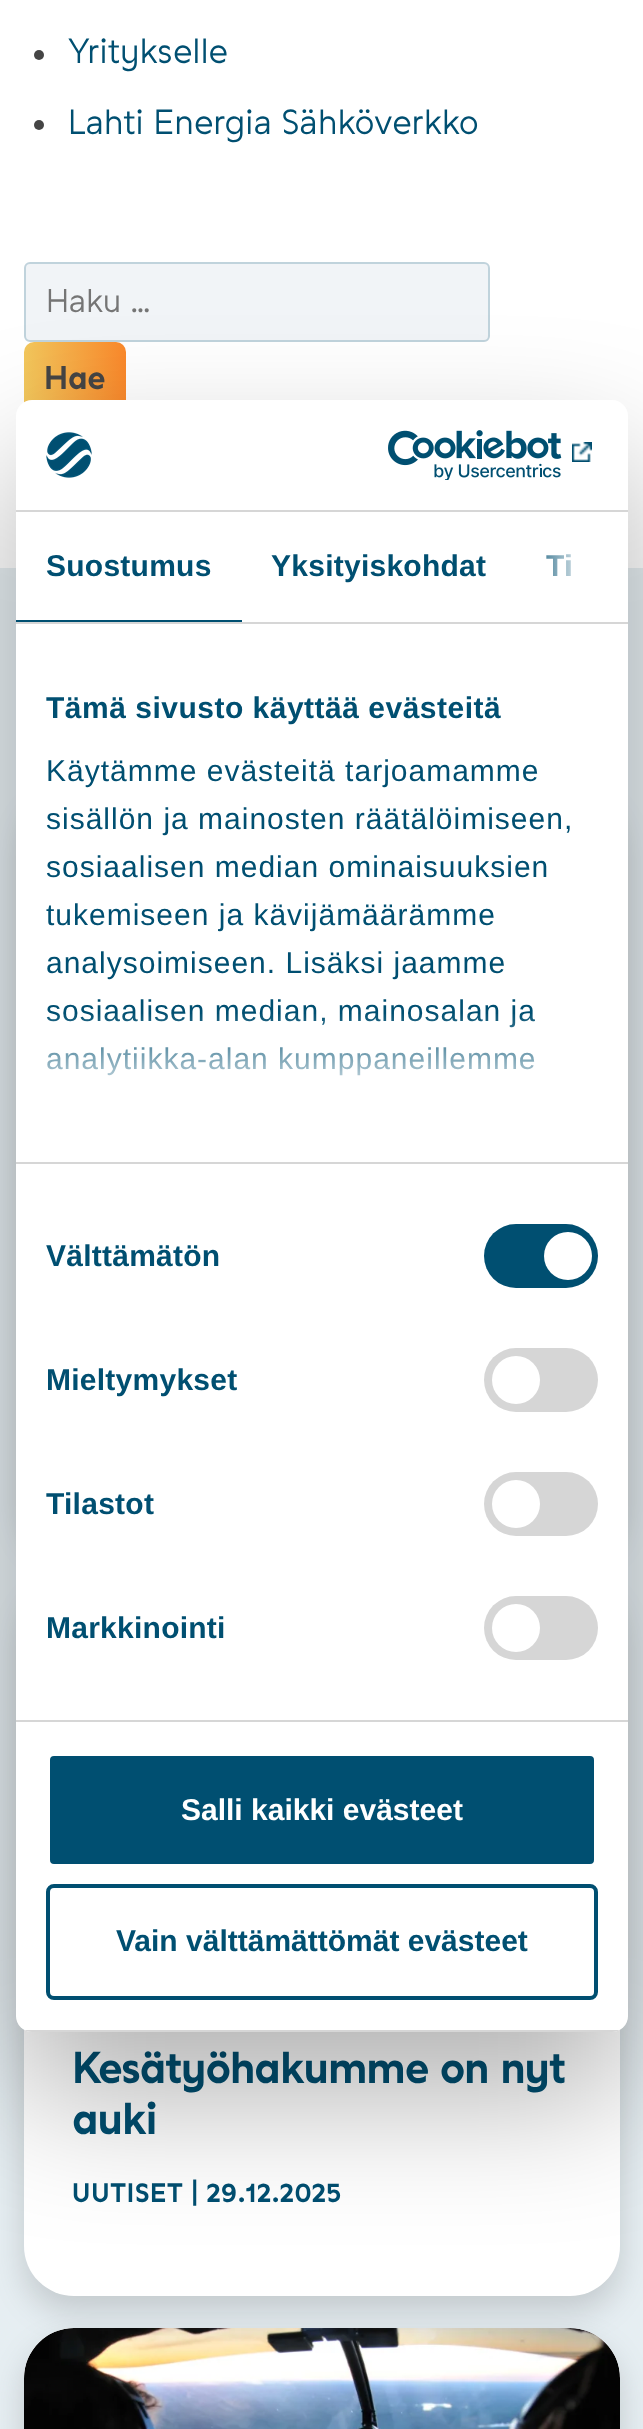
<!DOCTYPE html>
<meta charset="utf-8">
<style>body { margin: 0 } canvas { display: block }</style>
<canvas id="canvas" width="643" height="2429"></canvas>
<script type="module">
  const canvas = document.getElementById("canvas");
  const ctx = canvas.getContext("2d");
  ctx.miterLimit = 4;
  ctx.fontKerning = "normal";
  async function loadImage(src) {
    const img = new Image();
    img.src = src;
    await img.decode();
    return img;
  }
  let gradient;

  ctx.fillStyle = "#ffffff";
  ctx.fillRect(0, 0, 643, 2429);
  ctx.fillStyle = "#454545";
  ctx.beginPath();
  ctx.arc(39, 55, 5, 0, Math.PI * 2);
  ctx.fill();
  ctx.font = "34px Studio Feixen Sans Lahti";
  ctx.fillStyle = "#004f71";
  ctx.fillText("Yritykselle", 68, 63);
  ctx.fillStyle = "#454545";
  ctx.beginPath();
  ctx.arc(39, 125, 5, 0, Math.PI * 2);
  ctx.fill();
  ctx.fillStyle = "#004f71";
  ctx.fillText("Lahti Energia Sähköverkko", 68, 134);
  ctx.fillStyle = "#f1f4f7";
  ctx.beginPath();
  ctx.roundRect(24, 262, 466, 80, 6);
  ctx.fill();
  ctx.beginPath();
  ctx.roundRect(25, 263, 464, 78, 5);
  ctx.strokeStyle = "rgba(0, 79, 113, 0.2)";
  ctx.lineWidth = 2;
  ctx.stroke();
  ctx.font = "32px Studio Feixen Sans Lahti";
  ctx.fillStyle = "#757575";
  ctx.fillText("Haku …", 46, 312);
  gradient = ctx.createLinearGradient(24, 379, 228, 379);
  gradient.addColorStop(0, "#f2c75c");
  gradient.addColorStop(0.75, "#ff6a13");
  gradient.addColorStop(1, "#ff6a13");
  ctx.fillStyle = gradient;
  ctx.beginPath();
  ctx.roundRect(24, 342, 102, 74, 10);
  ctx.fill();
  ctx.font = "800 32px Studio Feixen Sans Lahti";
  ctx.fillStyle = "#454545";
  ctx.fillText("Hae", 44, 389);
  ctx.fillStyle = "#e6eef2";
  ctx.fillRect(0, 568, 643, 1861);
  ctx.fillStyle = "rgba(0, 0, 0, 0.15)";
  ctx.filter = "blur(16px)";
  ctx.beginPath();
  ctx.roundRect(24, 802, 596, 758, 50);
  ctx.fill();
  ctx.filter = "none";
  ctx.filter = "blur(16px)";
  ctx.beginPath();
  ctx.roundRect(24, 1592, 596, 720, 50);
  ctx.fill();
  ctx.filter = "none";
  ctx.fillStyle = "#ffffff";
  ctx.beginPath();
  ctx.roundRect(24, 1576, 596, 720, 50);
  ctx.fill();
  ctx.letterSpacing = "-1px";
  ctx.font = "800 43.25px Studio Feixen Sans Lahti";
  ctx.fillStyle = "#004f71";
  ctx.fillText("Kesätyöhakumme on nyt", 72, 2083);
  ctx.fillText("auki", 72, 2134);
  ctx.letterSpacing = "1px";
  ctx.font = "800 26px Studio Feixen Sans Lahti";
  ctx.fillText("UUTISET | 29.12.2025", 72, 2202);
  ctx.fillStyle = "rgba(0, 0, 0, 0.15)";
  ctx.filter = "blur(16px)";
  ctx.beginPath();
  ctx.roundRect(24, 2344, 596, 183, 50);
  ctx.fill();
  ctx.filter = "none";
  ctx.fillStyle = "#ffffff";
  ctx.beginPath();
  ctx.roundRect(24, 2328, 596, 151, 50);
  ctx.fill();
  ctx.drawImage(await loadImage("img1.png"), 24, 2328, 596, 101);
  ctx.fillStyle = "rgba(0, 0, 0, 0.3)";
  ctx.filter = "blur(68px)";
  ctx.beginPath();
  ctx.roundRect(16, 464, 612, 1632, 16);
  ctx.fill();
  ctx.filter = "none";
  ctx.fillStyle = "#ffffff";
  ctx.beginPath();
  ctx.roundRect(16, 400, 612, 1632, 16);
  ctx.fill();
  ctx.fillStyle = "#d6d6d6";
  ctx.fillRect(16, 510, 612, 2);
  ctx.drawImage(await loadImage("img2.png"), 46, 432, 46, 46);
  ctx.drawImage(await loadImage("img3.png"), 388, 430, 174, 50);
  ctx.drawImage(await loadImage("img4.png"), 572, 442, 20, 20);
  ctx.fillRect(16, 622, 612, 2);
  ctx.fillStyle = "#004f71";
  ctx.fillRect(16, 620, 226, 2);
  ctx.letterSpacing = "0.25px";
  ctx.font = "bold 30px Liberation Sans";
  ctx.fillText("Suostumus", 46, 576);
  ctx.fillText("Yksityiskohdat", 271, 576);
  ctx.fillText("Ti", 546, 576);
  gradient = ctx.createLinearGradient(628, 567, 524, 567);
  gradient.addColorStop(0, "#ffffff");
  gradient.addColorStop(0.5, "rgba(255, 255, 255, 0.8)");
  gradient.addColorStop(1, "rgba(255, 255, 255, 0)");
  ctx.fillStyle = gradient;
  ctx.fillRect(546, 554, 24, 22);
  ctx.fillStyle = "#d6d6d6";
  ctx.fillRect(16, 1162, 612, 2);
  ctx.letterSpacing = "0.5px";
  ctx.fillStyle = "#004f71";
  ctx.fillText("Tämä sivusto käyttää evästeitä", 46, 718);
  ctx.letterSpacing = "1px";
  ctx.font = "30px Liberation Sans";
  ctx.fillText("Käytämme evästeitä tarjoamamme", 46, 781);
  ctx.fillText("sisällön ja mainosten räätälöimiseen,", 46, 829);
  ctx.fillText("sosiaalisen median ominaisuuksien", 46, 877);
  ctx.fillText("tukemiseen ja kävijämäärämme", 46, 925);
  ctx.fillText("analysoimiseen. Lisäksi jaamme", 46, 973);
  ctx.fillText("sosiaalisen median, mainosalan ja", 46, 1021);
  ctx.fillText("analytiikka-alan kumppaneillemme", 46, 1069);
  gradient = ctx.createLinearGradient(309, 1162, 309, 1012);
  gradient.addColorStop(0, "#ffffff");
  gradient.addColorStop(0.5, "rgba(255, 255, 255, 0.8)");
  gradient.addColorStop(1, "rgba(255, 255, 255, 0)");
  ctx.fillStyle = gradient;
  ctx.fillRect(47, 1014, 488, 62);
  ctx.fillStyle = "#d6d6d6";
  ctx.fillRect(16, 1720, 612, 2);
  ctx.letterSpacing = "0.25px";
  ctx.font = "bold 30px Liberation Sans";
  ctx.fillStyle = "#004f71";
  ctx.fillText("Välttämätön", 46, 1266);
  ctx.beginPath();
  ctx.roundRect(484, 1224, 114, 64, 32);
  ctx.fill();
  ctx.fillStyle = "#ffffff";
  ctx.beginPath();
  ctx.arc(568, 1256, 24, 0, Math.PI * 2);
  ctx.fill();
  ctx.fillStyle = "#004f71";
  ctx.fillText("Mieltymykset", 46, 1390);
  ctx.fillStyle = "#d6d6d6";
  ctx.beginPath();
  ctx.roundRect(484, 1348, 114, 64, 32);
  ctx.fill();
  ctx.fillStyle = "#ffffff";
  ctx.beginPath();
  ctx.arc(516, 1380, 24, 0, Math.PI * 2);
  ctx.fill();
  ctx.fillStyle = "#004f71";
  ctx.fillText("Tilastot", 46, 1514);
  ctx.fillStyle = "#d6d6d6";
  ctx.beginPath();
  ctx.roundRect(484, 1472, 114, 64, 32);
  ctx.fill();
  ctx.fillStyle = "#ffffff";
  ctx.beginPath();
  ctx.arc(516, 1504, 24, 0, Math.PI * 2);
  ctx.fill();
  ctx.fillStyle = "#004f71";
  ctx.fillText("Markkinointi", 46, 1638);
  ctx.fillStyle = "#d6d6d6";
  ctx.beginPath();
  ctx.roundRect(484, 1596, 114, 64, 32);
  ctx.fill();
  ctx.fillStyle = "#ffffff";
  ctx.beginPath();
  ctx.arc(516, 1628, 24, 0, Math.PI * 2);
  ctx.fill();
  ctx.save();
  ctx.beginPath();
  ctx.roundRect(16, 400, 612, 1632, 16);
  ctx.clip();
  ctx.fillStyle = "#d6d6d6";
  ctx.fillRect(16, 2030, 612, 2);
  ctx.restore();
  ctx.fillStyle = "#004f71";
  ctx.beginPath();
  ctx.roundRect(48, 1754, 548, 112, 6);
  ctx.fill();
  ctx.strokeStyle = "#ffffff";
  ctx.lineWidth = 4;
  ctx.stroke();
  ctx.letterSpacing = "0px";
  ctx.fillStyle = "#ffffff";
  ctx.fillText("Salli kaikki evästeet", 181, 1820);
  ctx.beginPath();
  ctx.roundRect(48, 1886, 548, 112, 6);
  ctx.strokeStyle = "#004f71";
  ctx.stroke();
  ctx.fillStyle = "#004f71";
  ctx.fillText("Vain välttämättömät evästeet", 116, 1951);
</script>
